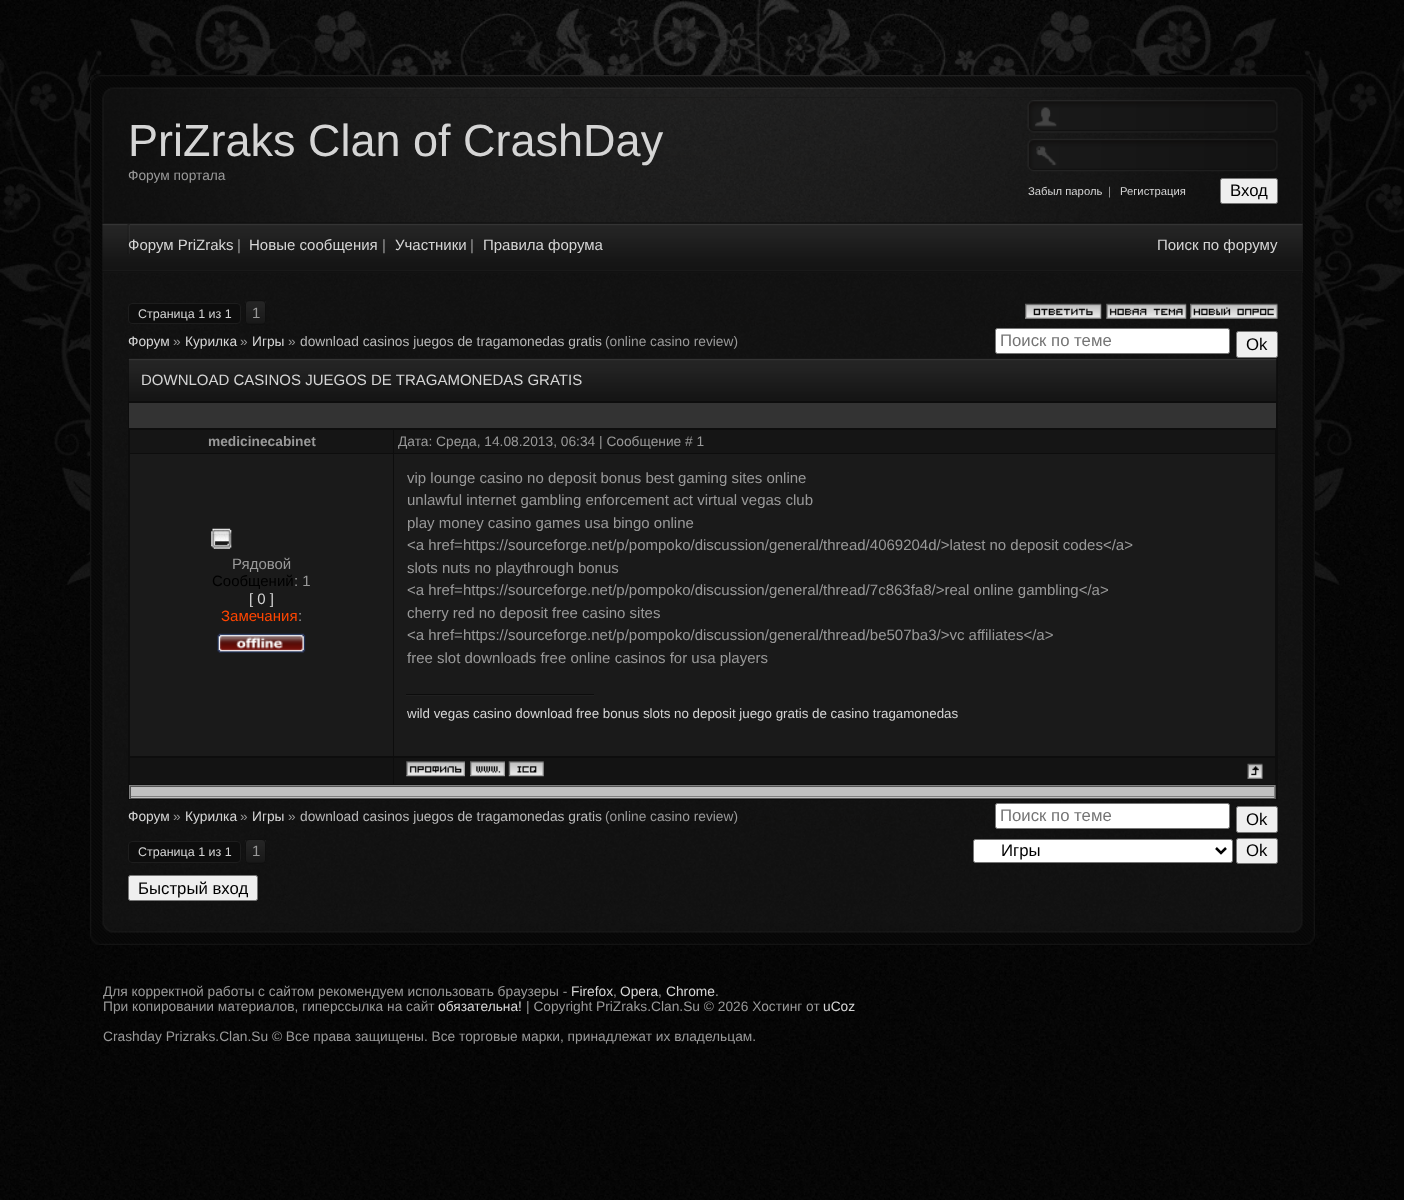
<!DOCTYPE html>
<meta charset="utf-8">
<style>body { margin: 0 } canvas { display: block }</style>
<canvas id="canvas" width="1404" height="1200"></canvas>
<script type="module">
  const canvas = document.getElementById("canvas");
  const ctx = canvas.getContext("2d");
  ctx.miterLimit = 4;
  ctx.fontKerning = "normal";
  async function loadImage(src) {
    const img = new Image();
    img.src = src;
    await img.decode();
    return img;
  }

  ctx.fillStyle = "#050505";
  ctx.fillRect(0, 0, 1404, 1200);
  ctx.drawImage(await loadImage("img1.png"), 0, 91, 1398, 1109);
  ctx.drawImage(await loadImage("img2.png"), 0, 0, 1404, 585);
  ctx.fillStyle = "#141414";
  ctx.fillRect(90, 97, 1, 826);
  ctx.drawImage(await loadImage("img3.png"), 103, 97, 1212, 826);
  ctx.drawImage(await loadImage("img4.png"), 91, 97, 1223, 826);
  ctx.drawImage(await loadImage("img5.png"), 90, 75, 1225, 23);
  ctx.drawImage(await loadImage("img6.png"), 90, 923, 1225, 22);
  ctx.fillStyle = "#1b1b1b";
  ctx.fillRect(103, 223, 1200, 50);
  ctx.drawImage(await loadImage("img10.png"), 102, 222, 1201, 51);
  ctx.drawImage(await loadImage("img7.png"), 102, 97, 1201, 126);
  ctx.font = "45px Liberation Sans";
  ctx.fillStyle = "#d5d5d5";
  ctx.fillText("PriZraks Clan of CrashDay", 128, 156);
  ctx.font = "13.75px Liberation Sans";
  ctx.fillStyle = "#999999";
  ctx.fillText("Форум портала", 128, 180);
  ctx.drawImage(await loadImage("img8.png"), 1027, 100, 251, 33);
  ctx.drawImage(await loadImage("img9.png"), 1027, 138, 251, 34);
  ctx.font = "11.25px Liberation Sans";
  ctx.fillStyle = "#d5d5d5";
  ctx.fillText("Забыл пароль", 1028, 195);
  ctx.fillStyle = "#999999";
  ctx.fillText("|", 1108, 195);
  ctx.fillStyle = "#d5d5d5";
  ctx.fillText("Регистрация", 1120, 195);
  ctx.fillStyle = "#efefef";
  ctx.beginPath();
  ctx.roundRect(1220.5, 178.5, 57, 25, 2);
  ctx.fill();
  ctx.strokeStyle = "#767676";
  ctx.stroke();
  ctx.font = "16.75px Liberation Sans";
  ctx.fillStyle = "#000000";
  ctx.fillText("Вход", 1230, 196);
  ctx.drawImage(await loadImage("img11.png"), 127, 224, 3, 30);
  ctx.font = "15px Liberation Sans";
  ctx.fillStyle = "#d5d5d5";
  ctx.fillText("Форум PriZraks", 128, 250);
  ctx.fillStyle = "#999999";
  ctx.fillText("|", 237, 250);
  ctx.fillStyle = "#d5d5d5";
  ctx.fillText("Новые сообщения", 249, 250);
  ctx.fillStyle = "#999999";
  ctx.fillText("|", 382, 250);
  ctx.fillStyle = "#d5d5d5";
  ctx.fillText("Участники", 395, 250);
  ctx.fillStyle = "#999999";
  ctx.fillText("|", 470, 250);
  ctx.fillStyle = "#d5d5d5";
  ctx.fillText("Правила форума", 483, 250);
  ctx.fillText("Поиск по форуму", 1157, 250);
  ctx.fillStyle = "#0d0d0d";
  ctx.beginPath();
  ctx.roundRect(128.5, 303.5, 112, 20, 3.5);
  ctx.fill();
  ctx.strokeStyle = "#1d1d1d";
  ctx.stroke();
  ctx.font = "12.5px Liberation Sans";
  ctx.fillStyle = "#d5d5d5";
  ctx.fillText("Страница 1 из 1", 138, 318);
  ctx.fillStyle = "#151515";
  ctx.beginPath();
  ctx.roundRect(245, 300, 21, 25, 4);
  ctx.fill();
  ctx.drawImage(await loadImage("img12.png"), 245, 301, 21, 22);
  ctx.beginPath();
  ctx.roundRect(245.5, 300.5, 20, 24, 3.5);
  ctx.strokeStyle = "#0f0f0f";
  ctx.stroke();
  ctx.font = "15px Liberation Sans";
  ctx.fillStyle = "#999999";
  ctx.fillText("1", 252, 318);
  ctx.drawImage(await loadImage("img13.png"), 1025, 303, 77, 16);
  ctx.drawImage(await loadImage("img14.png"), 1106, 303, 81, 16);
  ctx.drawImage(await loadImage("img15.png"), 1190, 303, 88, 16);
  ctx.font = "13.75px Liberation Sans";
  ctx.fillStyle = "#d5d5d5";
  ctx.fillText("Форум", 128, 346);
  ctx.fillStyle = "#999999";
  ctx.fillText("»", 173, 346);
  ctx.fillStyle = "#d5d5d5";
  ctx.fillText("Курилка", 185, 346);
  ctx.fillStyle = "#999999";
  ctx.fillText("»", 240, 346);
  ctx.fillStyle = "#d5d5d5";
  ctx.fillText("Игры", 252, 346);
  ctx.fillStyle = "#999999";
  ctx.fillText("»", 288, 346);
  ctx.fillStyle = "#b8b8b8";
  ctx.fillText("download casinos juegos de tragamonedas gratis", 300, 346);
  ctx.fillStyle = "#999999";
  ctx.fillText("(online casino review)", 605, 346);
  ctx.fillStyle = "#ffffff";
  ctx.beginPath();
  ctx.roundRect(995.5, 328.5, 234, 25, 2);
  ctx.fill();
  ctx.strokeStyle = "#767676";
  ctx.stroke();
  ctx.font = "16.75px Liberation Sans";
  ctx.fillStyle = "#757575";
  ctx.fillText("Поиск по теме", 1000, 346);
  ctx.fillStyle = "#efefef";
  ctx.beginPath();
  ctx.roundRect(1236.5, 331.5, 41, 26, 2);
  ctx.fill();
  ctx.stroke();
  ctx.fillStyle = "#000000";
  ctx.fillText("Ok", 1246, 350);
  ctx.fillStyle = "#0d0d0d";
  ctx.fillRect(128, 358, 1150, 442);
  ctx.drawImage(await loadImage("img16.png"), 128, 358, 1149, 43);
  ctx.font = "15px Liberation Sans";
  ctx.fillStyle = "#d5d5d5";
  ctx.fillText("DOWNLOAD CASINOS JUEGOS DE TRAGAMONEDAS GRATIS", 141, 385);
  ctx.fillStyle = "#333333";
  ctx.fillRect(129, 403, 1147, 25);
  ctx.fillStyle = "#151515";
  ctx.fillRect(130, 430, 263, 23);
  ctx.font = "bold 13.75px Liberation Sans";
  ctx.fillStyle = "#999999";
  ctx.fillText("medicinecabinet", 208, 446);
  ctx.fillStyle = "#151515";
  ctx.fillRect(394, 430, 881, 23);
  ctx.font = "13.75px Liberation Sans";
  ctx.fillStyle = "#999999";
  ctx.fillText("Дата: Среда, 14.08.2013, 06:34 | Сообщение # 1", 398, 446);
  ctx.fillStyle = "#1a1a1a";
  ctx.fillRect(130, 454, 263, 302);
  ctx.drawImage(await loadImage("img17.png"), 211, 528, 21, 21);
  ctx.font = "15px Liberation Sans";
  ctx.fillStyle = "#999999";
  ctx.fillText("Рядовой", 232, 569);
  ctx.fillStyle = "#000000";
  ctx.fillText("Сообщений", 212, 586);
  ctx.fillStyle = "#999999";
  ctx.fillText(": 1", 294, 586);
  ctx.fillStyle = "#d5d5d5";
  ctx.fillText("[ 0 ]", 249, 604);
  ctx.fillStyle = "#ff4500";
  ctx.fillText("Замечания", 221, 621);
  ctx.fillStyle = "#999999";
  ctx.fillText(":", 298, 621);
  ctx.drawImage(await loadImage("img18.png"), 217, 633, 89, 20);
  ctx.fillStyle = "#1a1a1a";
  ctx.fillRect(394, 454, 881, 302);
  ctx.fillStyle = "#999999";
  ctx.fillText("vip lounge casino no deposit bonus best gaming sites online", 407, 483);
  ctx.fillText("unlawful internet gambling enforcement act virtual vegas club", 407, 505);
  ctx.fillText("play money casino games usa bingo online", 407, 528);
  ctx.fillText("<a href=https://sourceforge.net/p/pompoko/discussion/general/thread/4069204d/>latest no deposit codes<\/a>", 407, 550);
  ctx.fillText("slots nuts no playthrough bonus", 407, 573);
  ctx.fillText("<a href=https://sourceforge.net/p/pompoko/discussion/general/thread/7c863fa8/>real online gambling<\/a>", 407, 595);
  ctx.fillText("cherry red no deposit free casino sites", 407, 618);
  ctx.fillText("<a href=https://sourceforge.net/p/pompoko/discussion/general/thread/be507ba3/>vc affiliates<\/a>", 407, 640);
  ctx.fillText("free slot downloads free online casinos for usa players", 407, 663);
  ctx.fillStyle = "#0c0c0c";
  ctx.fillRect(406, 694, 188, 1);
  ctx.fillStyle = "#202020";
  ctx.fillRect(406, 695, 188, 1);
  ctx.font = "13.35px Liberation Sans";
  ctx.fillStyle = "#d5d5d5";
  ctx.fillText("wild vegas casino download free bonus slots no deposit juego gratis de casino tragamonedas", 407, 718);
  ctx.fillStyle = "#131313";
  ctx.fillRect(130, 758, 263, 26);
  ctx.fillRect(394, 758, 881, 26);
  ctx.drawImage(await loadImage("img19.png"), 406, 761, 59, 16);
  ctx.drawImage(await loadImage("img20.png"), 470, 761, 35, 16);
  ctx.drawImage(await loadImage("img21.png"), 508, 761, 36, 16);
  ctx.drawImage(await loadImage("img22.png"), 1247, 763, 16, 16);
  ctx.fillStyle = "#808080";
  ctx.fillRect(129, 785, 1147, 1);
  ctx.fillStyle = "#555555";
  ctx.fillRect(1275, 785, 1, 14);
  ctx.fillRect(129, 798, 1147, 1);
  ctx.fillStyle = "#808080";
  ctx.fillRect(129, 785, 1, 14);
  ctx.fillStyle = "#c1c1c1";
  ctx.fillRect(131, 787, 1143, 11);
  ctx.fillStyle = "#555555";
  ctx.fillRect(130, 786, 1145, 1);
  ctx.fillStyle = "#808080";
  ctx.fillRect(1274, 786, 1, 12);
  ctx.fillRect(130, 796, 1145, 1);
  ctx.fillStyle = "#555555";
  ctx.fillRect(130, 786, 1, 12);
  ctx.font = "13.75px Liberation Sans";
  ctx.fillStyle = "#d5d5d5";
  ctx.fillText("Форум", 128, 821);
  ctx.fillStyle = "#999999";
  ctx.fillText("»", 173, 821);
  ctx.fillStyle = "#d5d5d5";
  ctx.fillText("Курилка", 185, 821);
  ctx.fillStyle = "#999999";
  ctx.fillText("»", 240, 821);
  ctx.fillStyle = "#d5d5d5";
  ctx.fillText("Игры", 252, 821);
  ctx.fillStyle = "#999999";
  ctx.fillText("»", 288, 821);
  ctx.fillStyle = "#b8b8b8";
  ctx.fillText("download casinos juegos de tragamonedas gratis", 300, 821);
  ctx.fillStyle = "#999999";
  ctx.fillText("(online casino review)", 605, 821);
  ctx.fillStyle = "#ffffff";
  ctx.beginPath();
  ctx.roundRect(995.5, 803.5, 234, 25, 2);
  ctx.fill();
  ctx.stroke();
  ctx.font = "16.75px Liberation Sans";
  ctx.fillStyle = "#757575";
  ctx.fillText("Поиск по теме", 1000, 821);
  ctx.fillStyle = "#efefef";
  ctx.beginPath();
  ctx.roundRect(1236.5, 806.5, 41, 26, 2);
  ctx.fill();
  ctx.stroke();
  ctx.fillStyle = "#000000";
  ctx.fillText("Ok", 1246, 825);
  ctx.fillStyle = "#0d0d0d";
  ctx.beginPath();
  ctx.roundRect(128.5, 841.5, 112, 21, 3.5);
  ctx.fill();
  ctx.strokeStyle = "#1d1d1d";
  ctx.stroke();
  ctx.font = "12.5px Liberation Sans";
  ctx.fillStyle = "#d5d5d5";
  ctx.fillText("Страница 1 из 1", 138, 856);
  ctx.fillStyle = "#151515";
  ctx.beginPath();
  ctx.roundRect(245, 839, 21, 25, 4);
  ctx.fill();
  ctx.drawImage(await loadImage("img23.png"), 245, 840, 21, 22);
  ctx.beginPath();
  ctx.roundRect(245.5, 839.5, 20, 24, 3.5);
  ctx.strokeStyle = "#0f0f0f";
  ctx.stroke();
  ctx.font = "15px Liberation Sans";
  ctx.fillStyle = "#999999";
  ctx.fillText("1", 252, 856);
  ctx.fillStyle = "#ffffff";
  ctx.beginPath();
  ctx.roundRect(973.5, 839.5, 259, 23, 2);
  ctx.fill();
  ctx.strokeStyle = "#767676";
  ctx.stroke();
  ctx.beginPath();
  ctx.moveTo(1216, 848);
  ctx.lineTo(1221, 853);
  ctx.lineTo(1226, 848);
  ctx.strokeStyle = "#000000";
  ctx.lineWidth = 2.5;
  ctx.stroke();
  ctx.font = "16.75px Liberation Sans";
  ctx.fillStyle = "#000000";
  ctx.fillText("Игры", 1001, 856);
  ctx.fillStyle = "#efefef";
  ctx.beginPath();
  ctx.roundRect(1236.5, 838.5, 41, 25, 2);
  ctx.fill();
  ctx.strokeStyle = "#767676";
  ctx.lineWidth = 1;
  ctx.stroke();
  ctx.fillStyle = "#000000";
  ctx.fillText("Ok", 1246, 856);
  ctx.fillStyle = "#efefef";
  ctx.beginPath();
  ctx.roundRect(128.5, 875.5, 129, 25, 2);
  ctx.fill();
  ctx.stroke();
  ctx.fillStyle = "#000000";
  ctx.fillText("Быстрый вход", 138, 894);
  ctx.font = "13.75px Liberation Sans";
  ctx.fillStyle = "#999999";
  ctx.fillText("Для корректной работы с сайтом рекомендуем использовать браузеры -", 103, 996);
  ctx.fillStyle = "#d5d5d5";
  ctx.fillText("Firefox", 571, 996);
  ctx.fillStyle = "#999999";
  ctx.fillText(",", 613, 996);
  ctx.fillStyle = "#d5d5d5";
  ctx.fillText("Opera", 620, 996);
  ctx.fillStyle = "#999999";
  ctx.fillText(",", 658, 996);
  ctx.fillStyle = "#d5d5d5";
  ctx.fillText("Chrome", 666, 996);
  ctx.fillStyle = "#999999";
  ctx.fillText(".", 715, 996);
  ctx.fillText("При копировании материалов, гиперссылка на сайт", 103, 1011);
  ctx.fillStyle = "#d5d5d5";
  ctx.fillText("обязательна!", 438, 1011);
  ctx.fillStyle = "#999999";
  ctx.fillText("| Copyright PriZraks.Clan.Su © 2026 Хостинг от", 526, 1011);
  ctx.fillStyle = "#d5d5d5";
  ctx.fillText("uCoz", 823, 1011);
  ctx.fillStyle = "#999999";
  ctx.fillText("Crashday Prizraks.Clan.Su © Все права защищены. Все торговые марки, принадлежат их владельцам.", 103, 1041);
</script>
